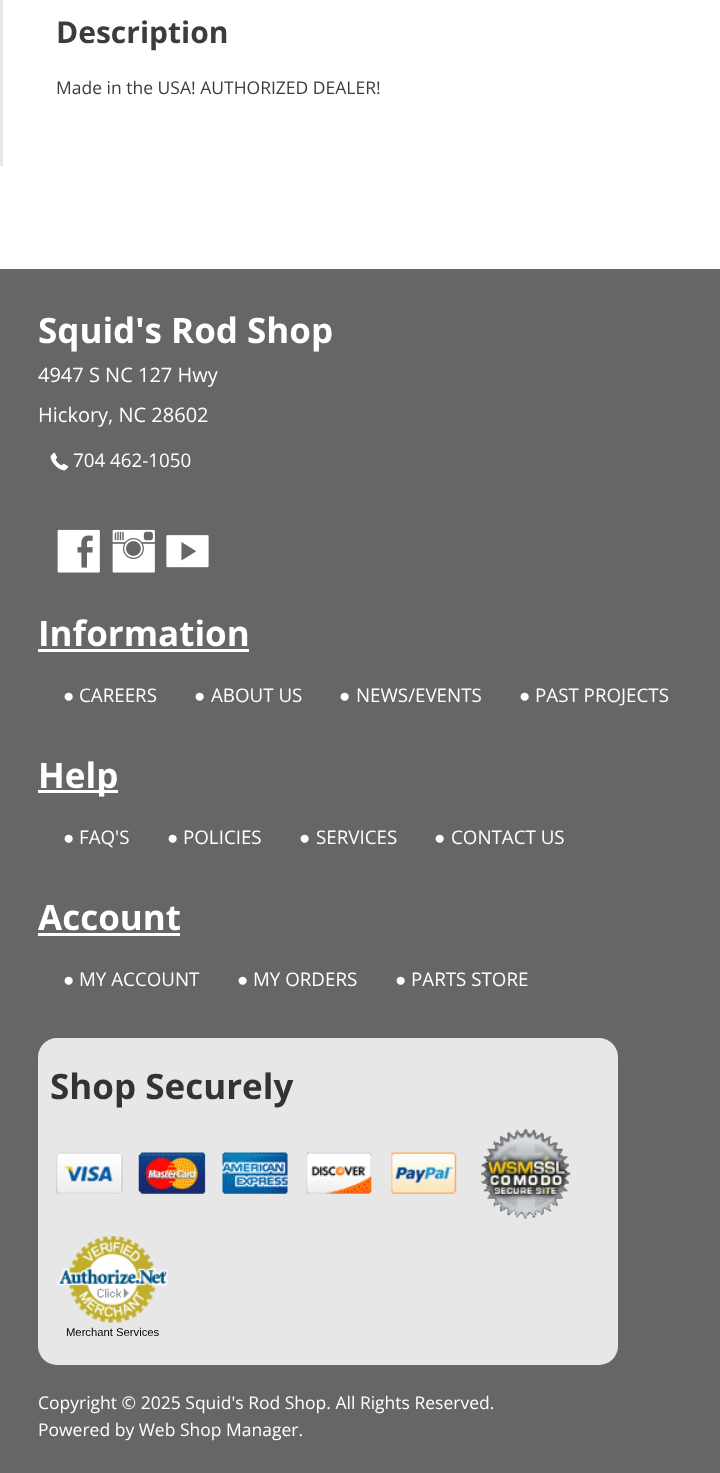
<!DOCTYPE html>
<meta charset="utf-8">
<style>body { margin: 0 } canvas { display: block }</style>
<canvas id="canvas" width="720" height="1473"></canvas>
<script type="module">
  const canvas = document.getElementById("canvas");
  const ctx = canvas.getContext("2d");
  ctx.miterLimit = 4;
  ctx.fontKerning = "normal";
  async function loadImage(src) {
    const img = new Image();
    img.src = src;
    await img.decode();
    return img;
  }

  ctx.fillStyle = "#ffffff";
  ctx.fillRect(0, 0, 720, 1473);
  ctx.fillStyle = "#e7e7e7";
  ctx.fillRect(0, 0, 3, 166);
  ctx.font = "bold 30px Open Sans";
  ctx.fillStyle = "#3c3c3c";
  ctx.fillText("Description", 56, 43);
  ctx.font = "17.5px Open Sans";
  ctx.fillText("Made in the USA! AUTHORIZED DEALER!", 56, 94);
  ctx.fillStyle = "#666666";
  ctx.fillRect(0, 269, 720, 1204);
  ctx.font = "bold 35px Open Sans";
  ctx.fillStyle = "#ffffff";
  ctx.fillText("Squid's Rod Shop", 38, 343);
  ctx.font = "20px Open Sans";
  ctx.fillText("4947 S NC 127 Hwy", 38, 382);
  ctx.fillText("Hickory, NC 28602", 38, 422);
  ctx.drawImage(await loadImage("img1.png"), 50, 452, 19, 19);
  ctx.font = "18.75px Open Sans";
  ctx.fillText("704 462-1050", 73, 467);
  ctx.drawImage(await loadImage("img2.png"), 57, 529, 43, 44);
  ctx.drawImage(await loadImage("img3.png"), 112, 529, 43, 44);
  ctx.drawImage(await loadImage("img4.png"), 166, 535, 43, 33);
  ctx.font = "bold 35px Open Sans";
  ctx.fillText("Information", 38, 646);
  ctx.fillRect(38, 649, 211, 3);
  ctx.font = "18.75px Liberation Sans";
  ctx.fillText("●", 63, 702);
  ctx.font = "18.75px Open Sans";
  ctx.fillText("CAREERS", 79, 702);
  ctx.font = "18.75px Liberation Sans";
  ctx.fillText("●", 194, 702);
  ctx.font = "18.75px Open Sans";
  ctx.fillText("ABOUT US", 211, 702);
  ctx.font = "18.75px Liberation Sans";
  ctx.fillText("●", 339, 702);
  ctx.font = "18.75px Open Sans";
  ctx.fillText("NEWS/EVENTS", 356, 702);
  ctx.font = "18.75px Liberation Sans";
  ctx.fillText("●", 519, 702);
  ctx.font = "18.75px Open Sans";
  ctx.fillText("PAST PROJECTS", 535, 702);
  ctx.fillRect(38, 790, 80, 3);
  ctx.font = "bold 35px Open Sans";
  ctx.fillText("Help", 38, 788);
  ctx.font = "18.75px Liberation Sans";
  ctx.fillText("●", 63, 844);
  ctx.font = "18.75px Open Sans";
  ctx.fillText("FAQ'S", 79, 844);
  ctx.font = "18.75px Liberation Sans";
  ctx.fillText("●", 167, 844);
  ctx.font = "18.75px Open Sans";
  ctx.fillText("POLICIES", 183, 844);
  ctx.font = "18.75px Liberation Sans";
  ctx.fillText("●", 299, 844);
  ctx.font = "18.75px Open Sans";
  ctx.fillText("SERVICES", 316, 844);
  ctx.font = "18.75px Liberation Sans";
  ctx.fillText("●", 434, 844);
  ctx.font = "18.75px Open Sans";
  ctx.fillText("CONTACT US", 451, 844);
  ctx.font = "bold 35px Open Sans";
  ctx.fillText("Account", 38, 930);
  ctx.fillRect(38, 933, 142, 3);
  ctx.font = "18.75px Liberation Sans";
  ctx.fillText("●", 63, 986);
  ctx.font = "18.75px Open Sans";
  ctx.fillText("MY ACCOUNT", 79, 986);
  ctx.font = "18.75px Liberation Sans";
  ctx.fillText("●", 237, 986);
  ctx.font = "18.75px Open Sans";
  ctx.fillText("MY ORDERS", 253, 986);
  ctx.font = "18.75px Liberation Sans";
  ctx.fillText("●", 395, 986);
  ctx.font = "18.75px Open Sans";
  ctx.fillText("PARTS STORE", 411, 986);
  ctx.fillStyle = "#e7e7e7";
  ctx.beginPath();
  ctx.roundRect(38, 1038, 580, 327, 19);
  ctx.fill();
  ctx.font = "bold 35px Open Sans";
  ctx.fillStyle = "#333333";
  ctx.fillText("Shop Securely", 50, 1099);
  ctx.drawImage(await loadImage("img5.png"), 56, 1152, 67, 42);
  ctx.drawImage(await loadImage("img6.png"), 138, 1152, 68, 42);
  ctx.drawImage(await loadImage("img7.png"), 222, 1152, 66, 42);
  ctx.drawImage(await loadImage("img8.png"), 306, 1152, 66, 42);
  ctx.drawImage(await loadImage("img9.png"), 391, 1152, 66, 42);
  ctx.drawImage(await loadImage("img10.png"), 481, 1128, 90, 91);
  ctx.drawImage(await loadImage("img11.png"), 57, 1236, 111, 87);
  ctx.font = "11.25px Liberation Sans";
  ctx.fillStyle = "#000000";
  ctx.fillText("Merchant Services", 66, 1336);
  ctx.font = "17.5px Open Sans";
  ctx.fillStyle = "#ffffff";
  ctx.fillText("Copyright © 2025 Squid's Rod Shop. All Rights Reserved.", 38, 1409);
  ctx.fillText("Powered by Web Shop Manager.", 38, 1436);
</script>
